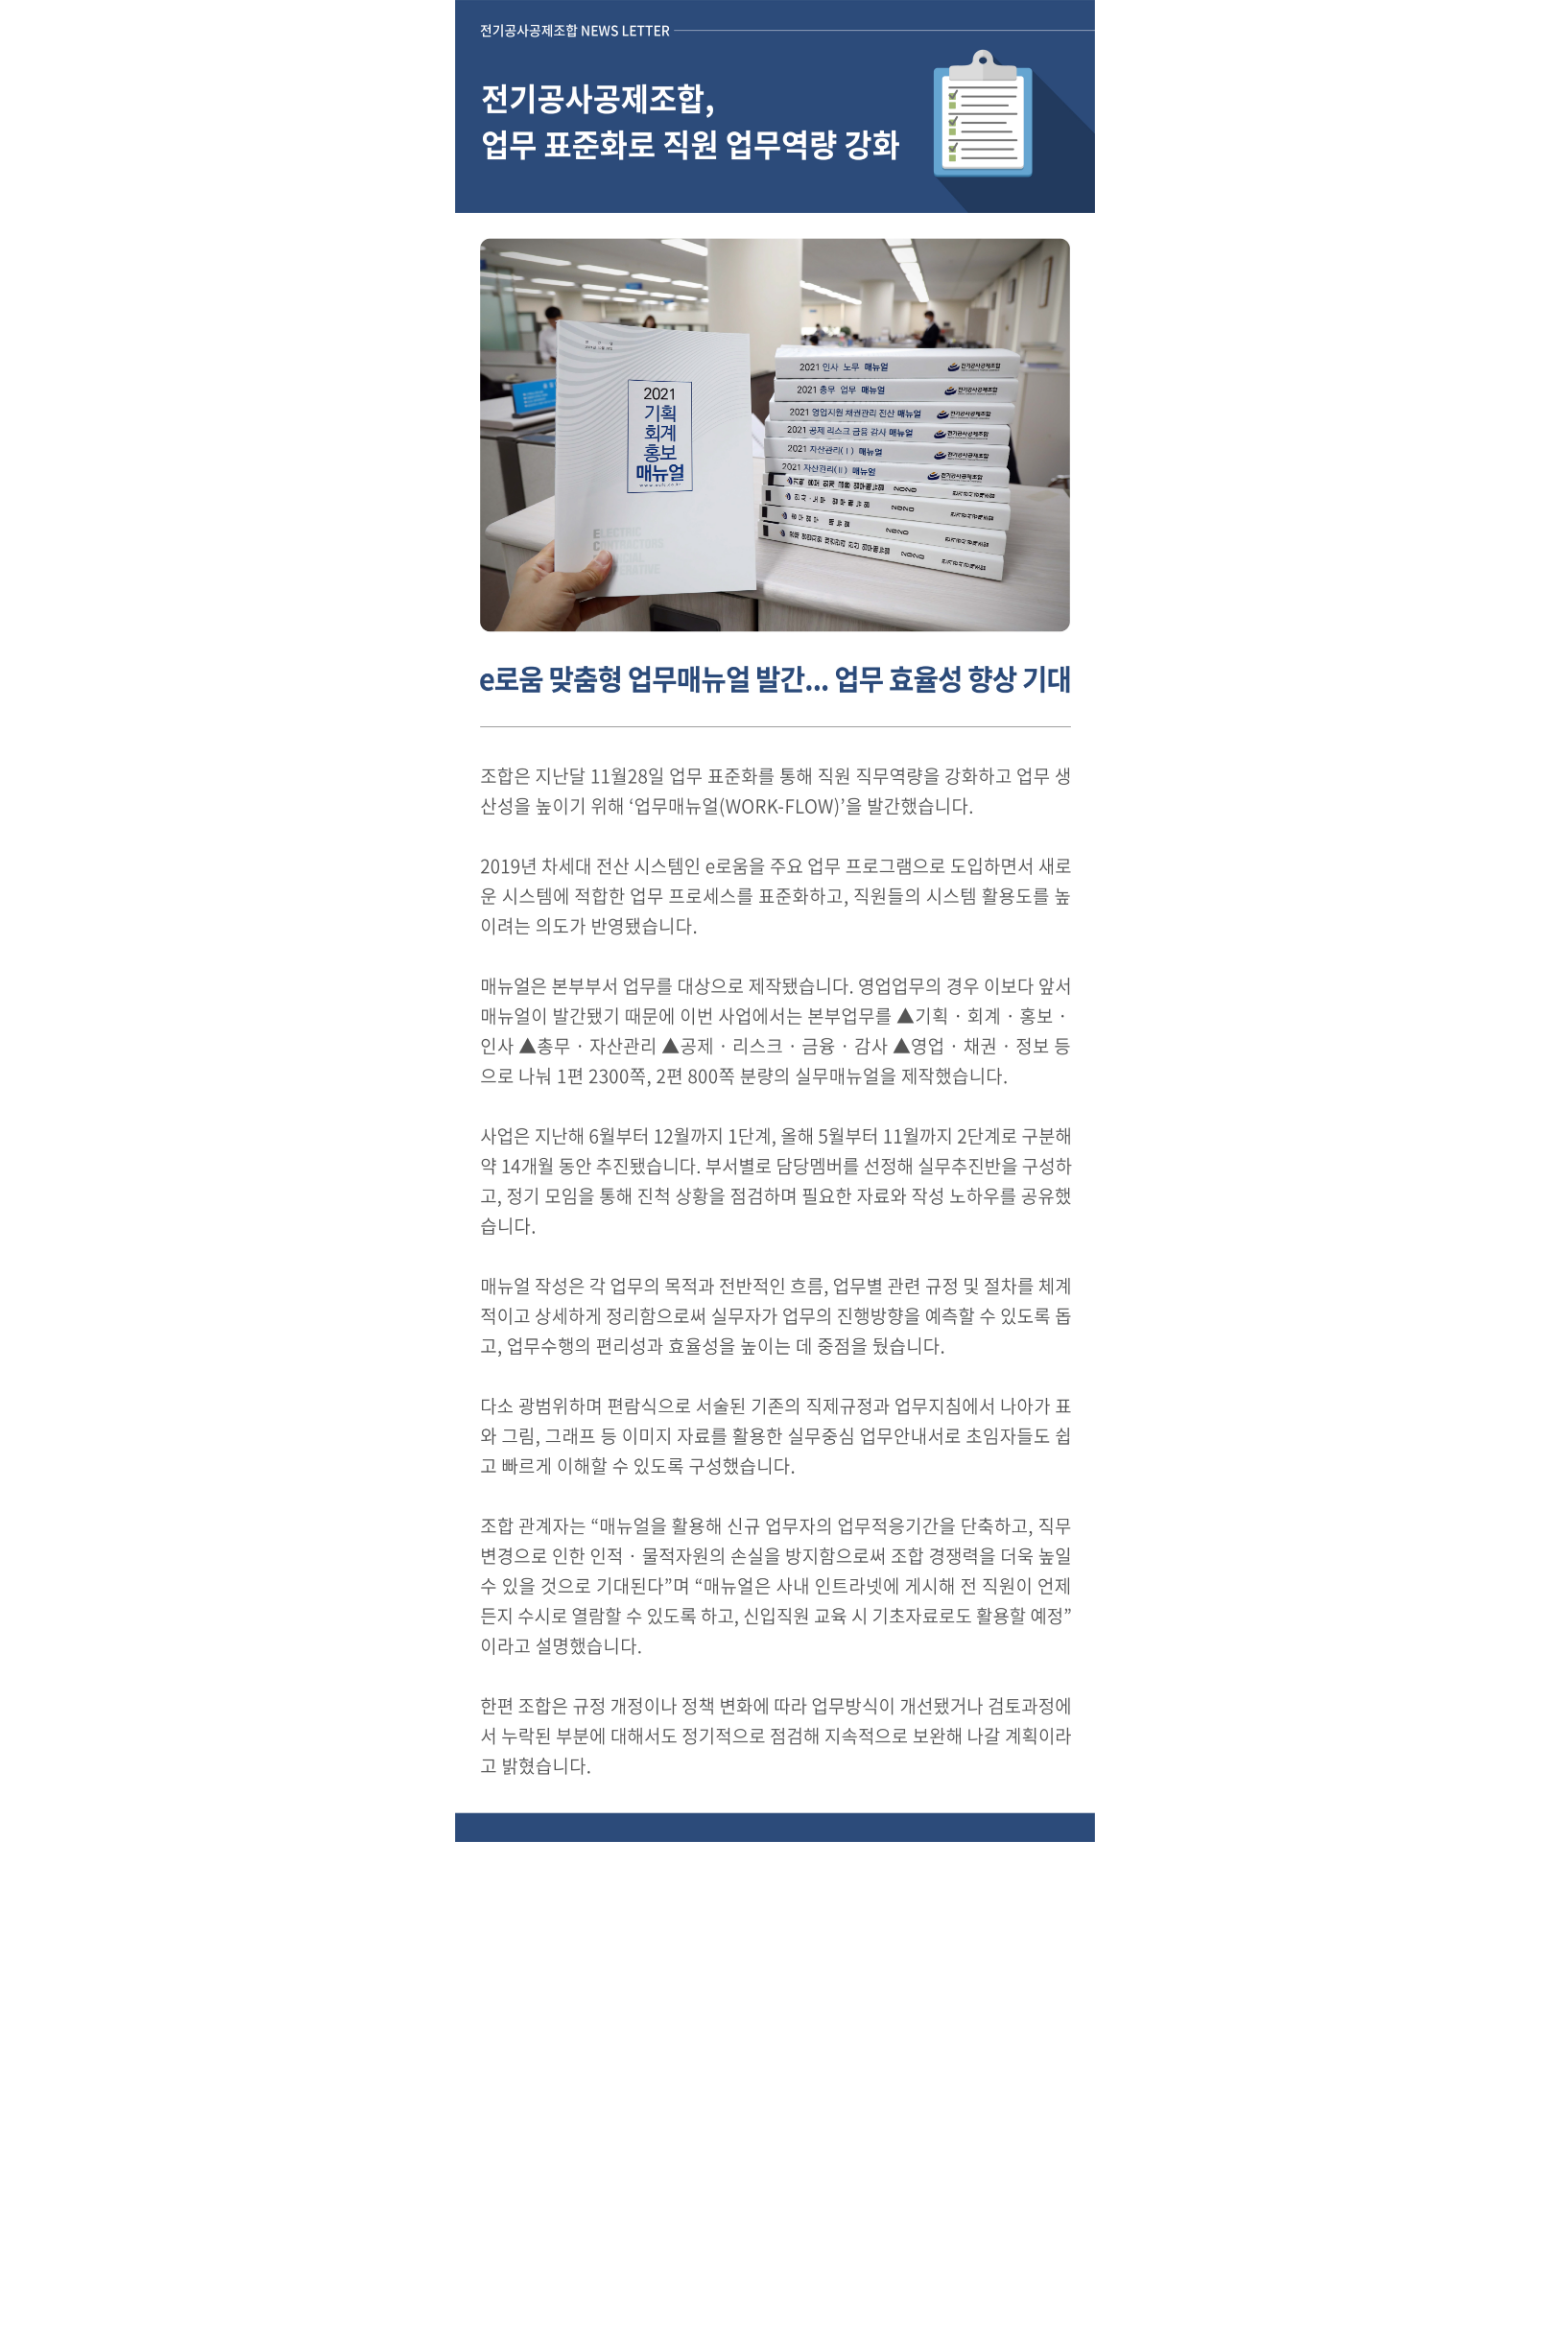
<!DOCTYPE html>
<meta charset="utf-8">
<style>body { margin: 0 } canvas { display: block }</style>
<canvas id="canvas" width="1549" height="2327"></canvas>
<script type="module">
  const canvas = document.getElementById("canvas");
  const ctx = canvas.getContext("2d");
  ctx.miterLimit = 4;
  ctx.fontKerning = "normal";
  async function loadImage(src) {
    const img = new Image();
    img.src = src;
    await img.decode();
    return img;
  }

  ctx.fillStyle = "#ffffff";
  ctx.fillRect(0, 0, 1549, 2327);
  ctx.drawImage(await loadImage("img1.png"), 455, 0, 640, 1842);
</script>
